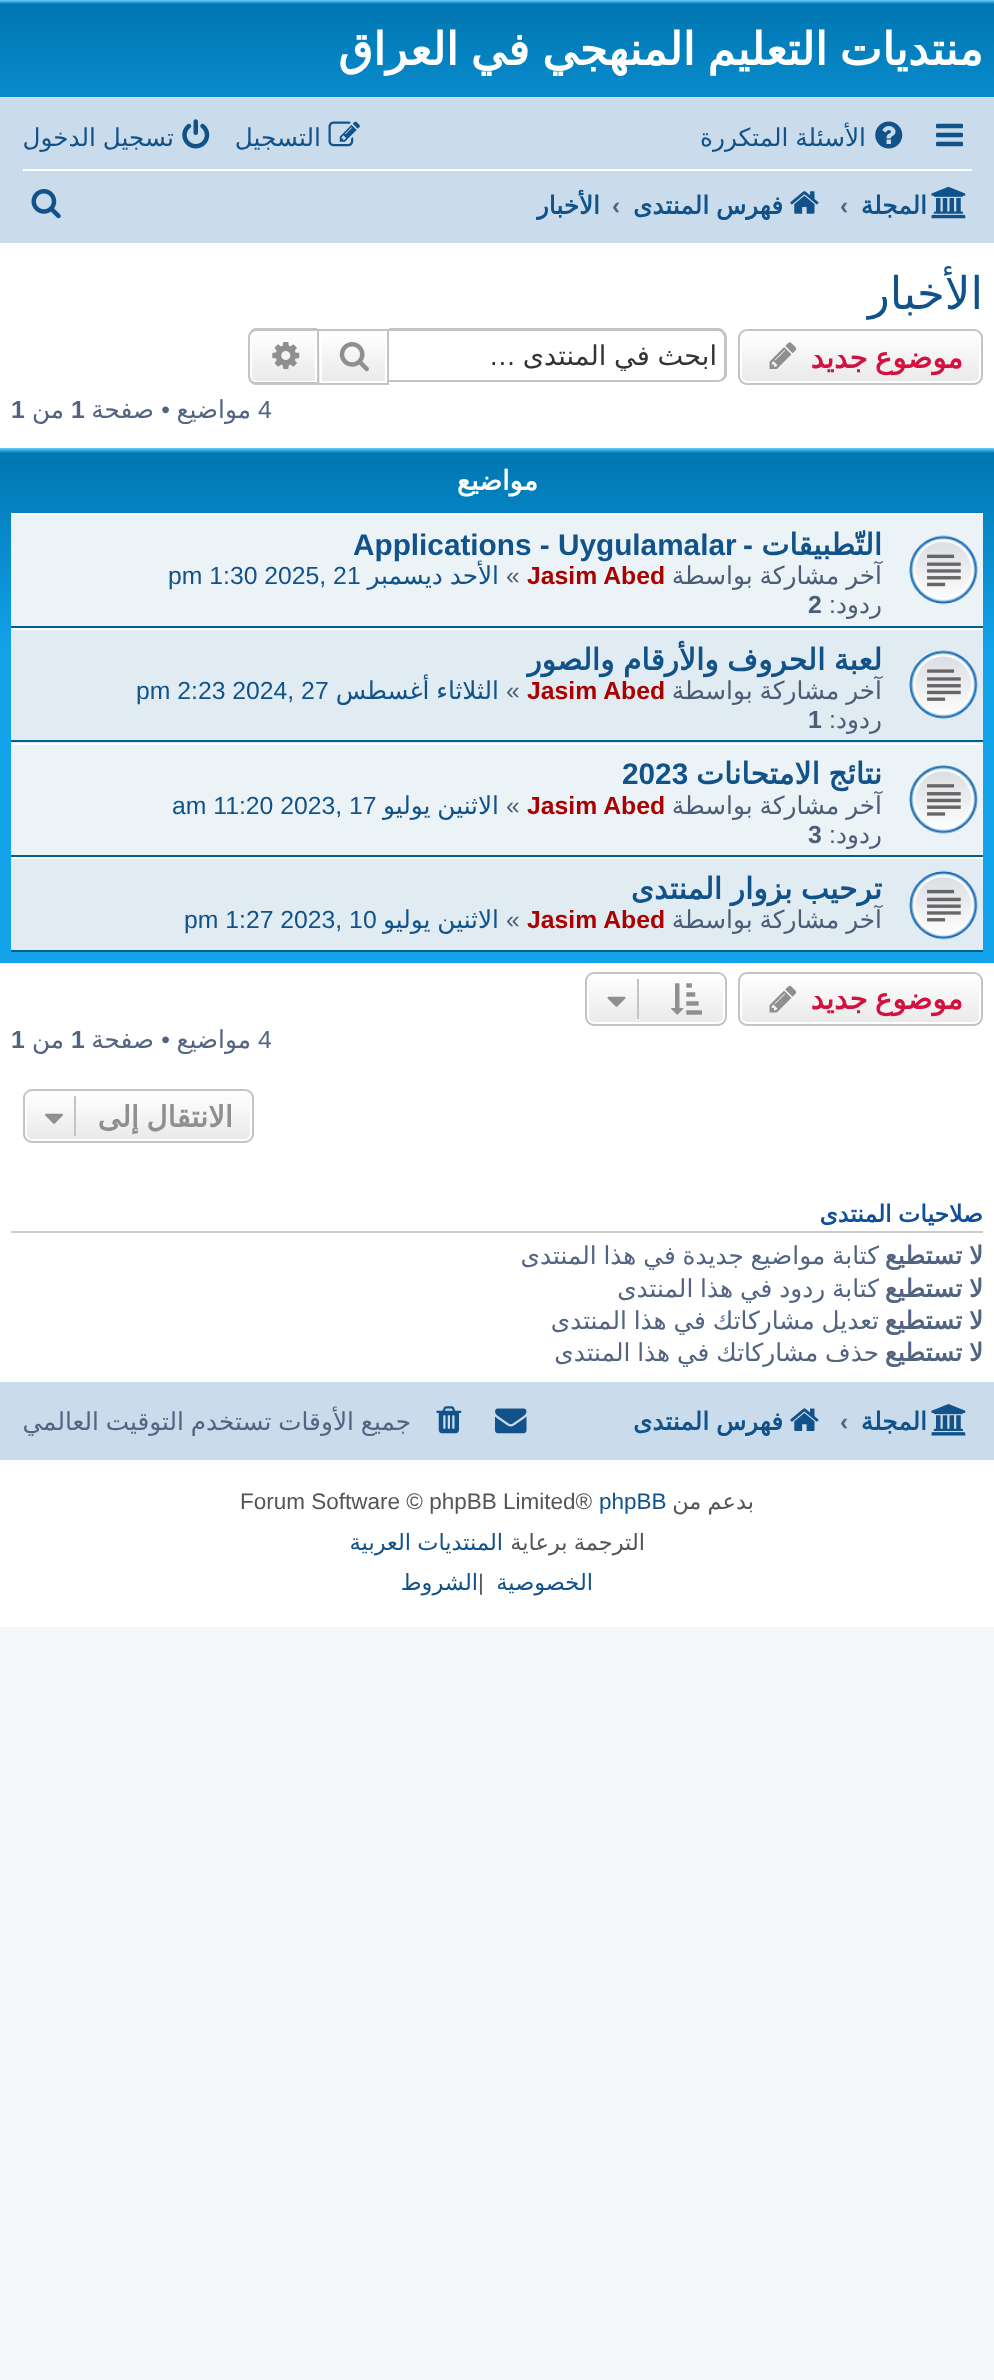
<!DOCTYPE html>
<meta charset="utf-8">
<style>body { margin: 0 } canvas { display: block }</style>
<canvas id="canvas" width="994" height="2380"></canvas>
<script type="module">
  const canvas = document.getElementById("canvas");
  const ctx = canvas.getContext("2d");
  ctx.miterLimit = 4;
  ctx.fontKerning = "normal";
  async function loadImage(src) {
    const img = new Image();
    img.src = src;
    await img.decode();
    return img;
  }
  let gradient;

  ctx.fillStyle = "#f5f7fa";
  ctx.fillRect(0, 0, 994, 2380);
  ctx.fillStyle = "#ffffff";
  ctx.fillRect(0, 243, 994, 1384);
  gradient = ctx.createLinearGradient(497, 0, 497, 207);
  gradient.addColorStop(0, "#6aceff");
  gradient.addColorStop(0.02, "#0076b1");
  gradient.addColorStop(1, "#12a3eb");
  ctx.fillStyle = gradient;
  ctx.fillRect(0, 0, 994, 97);
  ctx.save();
  ctx.beginPath();
  ctx.rect(338, 23, 645, 54);
  ctx.clip();
  ctx.wordSpacing = "-2px";
  ctx.direction = "rtl";
  ctx.font = "bold 45px DejaVu Sans";
  ctx.fillStyle = "#ffffff";
  ctx.fillText("منتديات التعليم المنهجي في العراق", 983, 65);
  ctx.restore();
  ctx.fillStyle = "#cadceb";
  ctx.fillRect(0, 97, 994, 146);
  ctx.drawImage(await loadImage("img1.png"), 936, 123, 27, 24);
  ctx.drawImage(await loadImage("img2.png"), 875, 121, 28, 28);
  ctx.wordSpacing = "-1px";
  ctx.direction = "rtl";
  ctx.font = "24.75px DejaVu Sans";
  ctx.fillStyle = "#105289";
  ctx.fillText("الأسئلة المتكررة", 866, 146);
  ctx.drawImage(await loadImage("img3.png"), 328, 121, 32, 26);
  ctx.wordSpacing = "0px";
  ctx.fillText("التسجيل", 321, 146);
  ctx.drawImage(await loadImage("img4.png"), 182, 119, 28, 30);
  ctx.wordSpacing = "-1px";
  ctx.fillText("تسجيل الدخول", 174, 146);
  ctx.fillStyle = "#ffffff";
  ctx.fillRect(23, 169, 949, 2);
  ctx.drawImage(await loadImage("img5.png"), 931, 186, 35, 33);
  ctx.wordSpacing = "0px";
  ctx.font = "bold 24.75px DejaVu Sans";
  ctx.fillStyle = "#105289";
  ctx.fillText("المجلة", 927, 214);
  ctx.direction = "ltr";
  ctx.font = "bold 24.75px Liberation Sans";
  ctx.fillStyle = "#536482";
  ctx.fillText("‹", 840, 214);
  ctx.drawImage(await loadImage("img6.png"), 790, 191, 29, 23);
  ctx.wordSpacing = "-1px";
  ctx.direction = "rtl";
  ctx.font = "bold 24.75px DejaVu Sans";
  ctx.fillStyle = "#105289";
  ctx.fillText("فهرس المنتدى", 783, 214);
  ctx.wordSpacing = "0px";
  ctx.direction = "ltr";
  ctx.font = "bold 24.75px Liberation Sans";
  ctx.fillStyle = "#536482";
  ctx.fillText("‹", 612, 214);
  ctx.save();
  ctx.beginPath();
  ctx.rect(536, 178, 65, 54);
  ctx.clip();
  ctx.direction = "rtl";
  ctx.font = "bold 24.75px DejaVu Sans";
  ctx.fillStyle = "#105289";
  ctx.fillText("الأخبار", 600, 214);
  ctx.restore();
  ctx.drawImage(await loadImage("img7.png"), 31, 189, 30, 30);
  ctx.direction = "rtl";
  ctx.font = "45px DejaVu Sans";
  ctx.fillStyle = "#105289";
  ctx.fillText("الأخبار", 983, 309);
  ctx.save();
  ctx.beginPath();
  ctx.roundRect(738, 329, 245, 56, 9);
  ctx.clip();
  gradient = ctx.createLinearGradient(861, 331, 861, 383);
  gradient.addColorStop(0, "#ffffff");
  gradient.addColorStop(1, "#e9e9e9");
  ctx.fillStyle = gradient;
  ctx.fillRect(738, 331, 245, 52);
  ctx.restore();
  ctx.beginPath();
  ctx.roundRect(741, 332, 239, 50, 6);
  ctx.strokeStyle = "#ffffff";
  ctx.lineWidth = 2;
  ctx.stroke();
  ctx.beginPath();
  ctx.roundRect(739, 330, 243, 54, 8);
  ctx.strokeStyle = "#c7c3bf";
  ctx.stroke();
  ctx.wordSpacing = "-2px";
  ctx.font = "bold 29.25px DejaVu Sans";
  ctx.fillStyle = "#d31141";
  ctx.fillText("موضوع جديد", 963, 368);
  ctx.drawImage(await loadImage("img8.png"), 769, 342, 28, 27);
  ctx.fillStyle = "#c7c3bf";
  ctx.beginPath();
  ctx.moveTo(389, 328);
  ctx.lineTo(718, 328);
  ctx.bezierCurveTo(723, 328, 727, 333, 727, 338);
  ctx.lineTo(727, 374);
  ctx.bezierCurveTo(727, 378, 723, 382, 718, 382);
  ctx.lineTo(389, 382);
  ctx.closePath();
  ctx.moveTo(389, 331);
  ctx.lineTo(718, 331);
  ctx.bezierCurveTo(721, 331, 724, 334, 724, 338);
  ctx.lineTo(724, 374);
  ctx.bezierCurveTo(724, 377, 721, 380, 718, 380);
  ctx.lineTo(389, 380);
  ctx.closePath();
  ctx.fill("evenodd");
  ctx.save();
  ctx.beginPath();
  ctx.rect(405, 340, 313, 31);
  ctx.clip();
  ctx.wordSpacing = "-1px";
  ctx.font = "27.25px DejaVu Sans";
  ctx.fillStyle = "#333333";
  ctx.fillText("ابحث في المنتدى", 717, 365);
  ctx.restore();
  ctx.wordSpacing = "0px";
  ctx.font = "27.25px Liberation Sans";
  ctx.fillStyle = "#333333";
  ctx.fillText("…", 516, 365);
  gradient = ctx.createLinearGradient(353, 331, 353, 383);
  gradient.addColorStop(0, "#ffffff");
  gradient.addColorStop(1, "#e9e9e9");
  ctx.fillStyle = gradient;
  ctx.fillRect(319, 337, 66, 46);
  ctx.strokeStyle = "#ffffff";
  ctx.strokeRect(321, 332, 65, 50);
  ctx.strokeStyle = "#c7c3bf";
  ctx.strokeRect(318, 330, 70, 54);
  ctx.drawImage(await loadImage("img9.png"), 339, 342, 30, 30);
  gradient = ctx.createLinearGradient(284, 331, 284, 383);
  gradient.addColorStop(0, "#ffffff");
  gradient.addColorStop(1, "#e9e9e9");
  ctx.fillStyle = gradient;
  ctx.beginPath();
  ctx.roundRect(251, 332, 65, 50, [6, 0, 0, 6]);
  ctx.fill();
  ctx.strokeStyle = "#ffffff";
  ctx.stroke();
  ctx.fillStyle = "#c7c3bf";
  ctx.beginPath();
  ctx.moveTo(256, 328);
  ctx.lineTo(317, 328);
  ctx.lineTo(317, 385);
  ctx.lineTo(256, 385);
  ctx.bezierCurveTo(252, 385, 248, 381, 248, 376);
  ctx.lineTo(248, 338);
  ctx.bezierCurveTo(248, 333, 252, 328, 256, 328);
  ctx.closePath();
  ctx.moveTo(256, 331);
  ctx.lineTo(317, 331);
  ctx.lineTo(317, 382);
  ctx.lineTo(256, 382);
  ctx.bezierCurveTo(253, 382, 250, 379, 250, 376);
  ctx.lineTo(250, 338);
  ctx.bezierCurveTo(250, 334, 253, 331, 256, 331);
  ctx.closePath();
  ctx.fill("evenodd");
  ctx.drawImage(await loadImage("img10.png"), 272, 342, 28, 27);
  ctx.direction = "ltr";
  ctx.font = "24.75px Liberation Sans";
  ctx.fillStyle = "#536482";
  ctx.fillText("4", 258, 418);
  ctx.direction = "rtl";
  ctx.font = "24.75px DejaVu Sans";
  ctx.fillText("مواضيع", 251, 418);
  ctx.font = "24.75px Liberation Sans";
  ctx.fillText("•", 170, 418);
  ctx.font = "24.75px DejaVu Sans";
  ctx.fillText("صفحة", 154, 418);
  ctx.direction = "ltr";
  ctx.font = "bold 24.75px Liberation Sans";
  ctx.fillText("1", 71, 418);
  ctx.direction = "rtl";
  ctx.font = "24.75px DejaVu Sans";
  ctx.fillText("من", 64, 418);
  ctx.direction = "ltr";
  ctx.font = "bold 24.75px Liberation Sans";
  ctx.fillText("1", 11, 418);
  gradient = ctx.createLinearGradient(497, 448, 497, 963);
  gradient.addColorStop(0, "#6aceff");
  gradient.addColorStop(0.01, "#0076b1");
  gradient.addColorStop(0.4, "#12a3eb");
  gradient.addColorStop(1, "#12a3eb");
  ctx.fillStyle = gradient;
  ctx.fillRect(0, 448, 994, 515);
  ctx.direction = "rtl";
  ctx.font = "bold 27px DejaVu Sans";
  ctx.fillStyle = "#ffffff";
  ctx.fillText("مواضيع", 538, 490);
  ctx.fillStyle = "#ecf3f7";
  ctx.fillRect(11, 515, 972, 111);
  ctx.fillStyle = "#ffffff";
  ctx.fillRect(11, 513, 972, 2);
  ctx.fillStyle = "#00608f";
  ctx.fillRect(11, 626, 972, 2);
  ctx.drawImage(await loadImage("img11.png"), 909, 535, 69, 70);
  ctx.font = "bold 29.75px DejaVu Sans";
  ctx.fillStyle = "#105289";
  ctx.fillText("التّطبيقات", 882, 555);
  ctx.font = "bold 29.75px Liberation Sans";
  ctx.fillText("-", 753, 555);
  ctx.direction = "ltr";
  ctx.fillText("Applications - Uygulamalar", 353, 555);
  ctx.wordSpacing = "-1px";
  ctx.direction = "rtl";
  ctx.font = "24.75px DejaVu Sans";
  ctx.fillStyle = "#4c5d77";
  ctx.fillText("آخر مشاركة بواسطة", 882, 584);
  ctx.wordSpacing = "0px";
  ctx.direction = "ltr";
  ctx.font = "bold 24.75px Liberation Sans";
  ctx.fillStyle = "#aa0000";
  ctx.fillText("Jasim Abed", 527, 584);
  ctx.font = "24.75px Liberation Sans";
  ctx.fillStyle = "#4c5d77";
  ctx.fillText("«", 506, 584);
  ctx.wordSpacing = "-1px";
  ctx.direction = "rtl";
  ctx.font = "24.75px DejaVu Sans";
  ctx.fillStyle = "#105289";
  ctx.fillText("الأحد ديسمبر", 499, 584);
  ctx.wordSpacing = "0px";
  ctx.direction = "ltr";
  ctx.font = "24.75px Liberation Sans";
  ctx.fillText("pm 1:30 2025, 21", 168, 584);
  ctx.direction = "rtl";
  ctx.font = "24.75px DejaVu Sans";
  ctx.fillStyle = "#4c5d77";
  ctx.fillText("ردود", 882, 613);
  ctx.font = "24.75px Liberation Sans";
  ctx.fillText(":", 836, 613);
  ctx.direction = "ltr";
  ctx.font = "bold 24.75px Liberation Sans";
  ctx.fillText("2", 808, 613);
  ctx.fillStyle = "#e1ebf2";
  ctx.fillRect(11, 630, 972, 113);
  ctx.fillStyle = "#ffffff";
  ctx.fillRect(11, 628, 972, 2);
  ctx.fillStyle = "#00608f";
  ctx.fillRect(11, 740, 972, 2);
  ctx.drawImage(await loadImage("img12.png"), 909, 650, 69, 69);
  ctx.wordSpacing = "-1px";
  ctx.direction = "rtl";
  ctx.font = "bold 29.75px DejaVu Sans";
  ctx.fillStyle = "#105289";
  ctx.fillText("لعبة الحروف والأرقام والصور", 882, 670);
  ctx.font = "24.75px DejaVu Sans";
  ctx.fillStyle = "#4c5d77";
  ctx.fillText("آخر مشاركة بواسطة", 882, 699);
  ctx.wordSpacing = "0px";
  ctx.direction = "ltr";
  ctx.font = "bold 24.75px Liberation Sans";
  ctx.fillStyle = "#aa0000";
  ctx.fillText("Jasim Abed", 527, 699);
  ctx.font = "24.75px Liberation Sans";
  ctx.fillStyle = "#4c5d77";
  ctx.fillText("«", 506, 699);
  ctx.wordSpacing = "-1px";
  ctx.direction = "rtl";
  ctx.font = "24.75px DejaVu Sans";
  ctx.fillStyle = "#105289";
  ctx.fillText("الثلاثاء أغسطس", 499, 699);
  ctx.wordSpacing = "0px";
  ctx.direction = "ltr";
  ctx.font = "24.75px Liberation Sans";
  ctx.fillText("pm 2:23 2024, 27", 136, 699);
  ctx.direction = "rtl";
  ctx.font = "24.75px DejaVu Sans";
  ctx.fillStyle = "#4c5d77";
  ctx.fillText("ردود", 882, 728);
  ctx.font = "24.75px Liberation Sans";
  ctx.fillText(":", 836, 728);
  ctx.direction = "ltr";
  ctx.font = "bold 24.75px Liberation Sans";
  ctx.fillText("1", 808, 728);
  ctx.fillStyle = "#ecf3f7";
  ctx.fillRect(11, 745, 972, 110);
  ctx.fillStyle = "#ffffff";
  ctx.fillRect(11, 743, 972, 2);
  ctx.fillStyle = "#00608f";
  ctx.fillRect(11, 855, 972, 2);
  ctx.drawImage(await loadImage("img13.png"), 909, 765, 69, 69);
  ctx.wordSpacing = "-1px";
  ctx.direction = "rtl";
  ctx.font = "bold 29.75px DejaVu Sans";
  ctx.fillStyle = "#105289";
  ctx.fillText("نتائج الامتحانات", 882, 784);
  ctx.wordSpacing = "0px";
  ctx.direction = "ltr";
  ctx.font = "bold 29.75px Liberation Sans";
  ctx.fillText("2023", 622, 784);
  ctx.wordSpacing = "-1px";
  ctx.direction = "rtl";
  ctx.font = "24.75px DejaVu Sans";
  ctx.fillStyle = "#4c5d77";
  ctx.fillText("آخر مشاركة بواسطة", 882, 814);
  ctx.wordSpacing = "0px";
  ctx.direction = "ltr";
  ctx.font = "bold 24.75px Liberation Sans";
  ctx.fillStyle = "#aa0000";
  ctx.fillText("Jasim Abed", 527, 814);
  ctx.font = "24.75px Liberation Sans";
  ctx.fillStyle = "#4c5d77";
  ctx.fillText("«", 506, 814);
  ctx.wordSpacing = "-1px";
  ctx.direction = "rtl";
  ctx.font = "24.75px DejaVu Sans";
  ctx.fillStyle = "#105289";
  ctx.fillText("الاثنين يوليو", 499, 814);
  ctx.wordSpacing = "0px";
  ctx.direction = "ltr";
  ctx.font = "24.75px Liberation Sans";
  ctx.fillText("am 11:20 2023, 17", 172, 814);
  ctx.direction = "rtl";
  ctx.font = "24.75px DejaVu Sans";
  ctx.fillStyle = "#4c5d77";
  ctx.fillText("ردود", 882, 843);
  ctx.font = "24.75px Liberation Sans";
  ctx.fillText(":", 836, 843);
  ctx.direction = "ltr";
  ctx.font = "bold 24.75px Liberation Sans";
  ctx.fillText("3", 808, 843);
  ctx.fillStyle = "#e1ebf2";
  ctx.fillRect(11, 859, 972, 91);
  ctx.fillStyle = "#ffffff";
  ctx.fillRect(11, 857, 972, 2);
  ctx.fillStyle = "#00608f";
  ctx.fillRect(11, 950, 972, 2);
  ctx.drawImage(await loadImage("img14.png"), 909, 870, 69, 70);
  ctx.wordSpacing = "-1px";
  ctx.direction = "rtl";
  ctx.font = "bold 29.75px DejaVu Sans";
  ctx.fillStyle = "#105289";
  ctx.fillText("ترحيب بزوار المنتدى", 882, 899);
  ctx.font = "24.75px DejaVu Sans";
  ctx.fillStyle = "#4c5d77";
  ctx.fillText("آخر مشاركة بواسطة", 882, 928);
  ctx.wordSpacing = "0px";
  ctx.direction = "ltr";
  ctx.font = "bold 24.75px Liberation Sans";
  ctx.fillStyle = "#aa0000";
  ctx.fillText("Jasim Abed", 527, 928);
  ctx.font = "24.75px Liberation Sans";
  ctx.fillStyle = "#4c5d77";
  ctx.fillText("«", 506, 928);
  ctx.wordSpacing = "-1px";
  ctx.direction = "rtl";
  ctx.font = "24.75px DejaVu Sans";
  ctx.fillStyle = "#105289";
  ctx.fillText("الاثنين يوليو", 499, 928);
  ctx.wordSpacing = "0px";
  ctx.direction = "ltr";
  ctx.font = "24.75px Liberation Sans";
  ctx.fillText("pm 1:27 2023, 10", 184, 928);
  ctx.save();
  ctx.beginPath();
  ctx.roundRect(738, 972, 245, 54, 9);
  ctx.clip();
  gradient = ctx.createLinearGradient(861, 974, 861, 1024);
  gradient.addColorStop(0, "#ffffff");
  gradient.addColorStop(1, "#e9e9e9");
  ctx.fillStyle = gradient;
  ctx.fillRect(738, 974, 245, 50);
  ctx.restore();
  ctx.beginPath();
  ctx.roundRect(741, 975, 239, 48, 6);
  ctx.stroke();
  ctx.beginPath();
  ctx.roundRect(739, 973, 243, 52, 8);
  ctx.strokeStyle = "#c7c3bf";
  ctx.stroke();
  ctx.wordSpacing = "-2px";
  ctx.direction = "rtl";
  ctx.font = "bold 29.25px DejaVu Sans";
  ctx.fillStyle = "#d31141";
  ctx.fillText("موضوع جديد", 963, 1009);
  ctx.drawImage(await loadImage("img15.png"), 769, 985, 28, 28);
  ctx.save();
  ctx.beginPath();
  ctx.roundRect(585, 972, 142, 54, 9);
  ctx.clip();
  gradient = ctx.createLinearGradient(656, 974, 656, 1024);
  gradient.addColorStop(0, "#ffffff");
  gradient.addColorStop(1, "#e9e9e9");
  ctx.fillStyle = gradient;
  ctx.fillRect(585, 974, 142, 50);
  ctx.restore();
  ctx.beginPath();
  ctx.roundRect(588, 975, 136, 48, 6);
  ctx.strokeStyle = "#ffffff";
  ctx.stroke();
  ctx.beginPath();
  ctx.roundRect(586, 973, 140, 52, 8);
  ctx.strokeStyle = "#c7c3bf";
  ctx.stroke();
  ctx.drawImage(await loadImage("img16.png"), 671, 983, 31, 32);
  ctx.fillStyle = "#c7c3bf";
  ctx.fillRect(637, 979, 2, 40);
  ctx.drawImage(await loadImage("img17.png"), 607, 996, 19, 11);
  ctx.wordSpacing = "0px";
  ctx.direction = "ltr";
  ctx.font = "24.75px Liberation Sans";
  ctx.fillStyle = "#536482";
  ctx.fillText("4", 258, 1048);
  ctx.direction = "rtl";
  ctx.font = "24.75px DejaVu Sans";
  ctx.fillText("مواضيع", 251, 1048);
  ctx.font = "24.75px Liberation Sans";
  ctx.fillText("•", 170, 1048);
  ctx.font = "24.75px DejaVu Sans";
  ctx.fillText("صفحة", 154, 1048);
  ctx.direction = "ltr";
  ctx.font = "bold 24.75px Liberation Sans";
  ctx.fillText("1", 71, 1048);
  ctx.direction = "rtl";
  ctx.font = "24.75px DejaVu Sans";
  ctx.fillText("من", 64, 1048);
  ctx.direction = "ltr";
  ctx.font = "bold 24.75px Liberation Sans";
  ctx.fillText("1", 11, 1048);
  ctx.save();
  ctx.beginPath();
  ctx.roundRect(23, 1089, 231, 54, 9);
  ctx.clip();
  gradient = ctx.createLinearGradient(138, 1091, 138, 1141);
  gradient.addColorStop(0, "#ffffff");
  gradient.addColorStop(1, "#e9e9e9");
  ctx.fillStyle = gradient;
  ctx.fillRect(23, 1091, 231, 50);
  ctx.restore();
  ctx.beginPath();
  ctx.roundRect(26, 1092, 225, 48, 6);
  ctx.strokeStyle = "#ffffff";
  ctx.stroke();
  ctx.beginPath();
  ctx.roundRect(24, 1090, 229, 52, 8);
  ctx.strokeStyle = "#c7c3bf";
  ctx.stroke();
  ctx.wordSpacing = "-2px";
  ctx.direction = "rtl";
  ctx.font = "bold 29.25px DejaVu Sans";
  ctx.fillStyle = "#8f8f8f";
  ctx.fillText("الانتقال إلى", 233, 1127);
  ctx.fillStyle = "#c7c3bf";
  ctx.fillRect(74, 1096, 2, 40);
  ctx.drawImage(await loadImage("img18.png"), 45, 1113, 18, 11);
  ctx.fillStyle = "#cccccc";
  ctx.fillRect(11, 1231, 972, 2);
  ctx.wordSpacing = "-1px";
  ctx.font = "bold 23.5px DejaVu Sans";
  ctx.fillStyle = "#115098";
  ctx.fillText("صلاحيات المنتدى", 983, 1222);
  ctx.font = "bold 24.75px DejaVu Sans";
  ctx.fillStyle = "#536482";
  ctx.fillText("لا تستطيع", 983, 1264);
  ctx.font = "24.75px DejaVu Sans";
  ctx.fillText("كتابة مواضيع جديدة في هذا المنتدى", 879, 1264);
  ctx.font = "bold 24.75px DejaVu Sans";
  ctx.fillText("لا تستطيع", 983, 1297);
  ctx.font = "24.75px DejaVu Sans";
  ctx.fillText("كتابة ردود في هذا المنتدى", 879, 1297);
  ctx.font = "bold 24.75px DejaVu Sans";
  ctx.fillText("لا تستطيع", 983, 1329);
  ctx.font = "24.75px DejaVu Sans";
  ctx.fillText("تعديل مشاركاتك في هذا المنتدى", 879, 1329);
  ctx.font = "bold 24.75px DejaVu Sans";
  ctx.fillText("لا تستطيع", 983, 1361);
  ctx.font = "24.75px DejaVu Sans";
  ctx.fillText("حذف مشاركاتك في هذا المنتدى", 879, 1361);
  ctx.fillStyle = "#cadceb";
  ctx.fillRect(0, 1382, 994, 78);
  ctx.drawImage(await loadImage("img19.png"), 931, 1404, 35, 32);
  ctx.wordSpacing = "0px";
  ctx.font = "bold 24.75px DejaVu Sans";
  ctx.fillStyle = "#105289";
  ctx.fillText("المجلة", 927, 1430);
  ctx.direction = "ltr";
  ctx.font = "bold 24.75px Liberation Sans";
  ctx.fillStyle = "#536482";
  ctx.fillText("‹", 840, 1430);
  ctx.drawImage(await loadImage("img20.png"), 790, 1408, 29, 23);
  ctx.wordSpacing = "-1px";
  ctx.direction = "rtl";
  ctx.font = "bold 24.75px DejaVu Sans";
  ctx.fillStyle = "#105289";
  ctx.fillText("فهرس المنتدى", 783, 1430);
  ctx.drawImage(await loadImage("img21.png"), 495, 1408, 32, 26);
  ctx.drawImage(await loadImage("img22.png"), 436, 1406, 26, 28);
  ctx.font = "24.75px DejaVu Sans";
  ctx.fillStyle = "#536482";
  ctx.fillText("جميع الأوقات تستخدم", 411, 1430);
  ctx.fillText("التوقيت العالمي", 184, 1430);
  ctx.font = "22.5px DejaVu Sans";
  ctx.fillStyle = "#555555";
  ctx.fillText("بدعم من", 754, 1509);
  ctx.wordSpacing = "0px";
  ctx.direction = "ltr";
  ctx.font = "22.5px Liberation Sans";
  ctx.fillStyle = "#105289";
  ctx.fillText("phpBB", 599, 1509);
  ctx.fillStyle = "#555555";
  ctx.fillText("Forum Software © phpBB Limited®", 240, 1509);
  ctx.wordSpacing = "-1px";
  ctx.direction = "rtl";
  ctx.font = "22.5px DejaVu Sans";
  ctx.fillText("الترجمة برعاية", 645, 1550);
  ctx.fillStyle = "#105289";
  ctx.fillText("المنتديات العربية", 503, 1550);
  ctx.wordSpacing = "0px";
  ctx.fillText("الخصوصية", 593, 1590);
  ctx.direction = "ltr";
  ctx.font = "22.5px Liberation Sans";
  ctx.fillStyle = "#555555";
  ctx.fillText("|", 478, 1590);
  ctx.direction = "rtl";
  ctx.font = "22.5px DejaVu Sans";
  ctx.fillStyle = "#105289";
  ctx.fillText("الشروط", 478, 1590);
</script>
